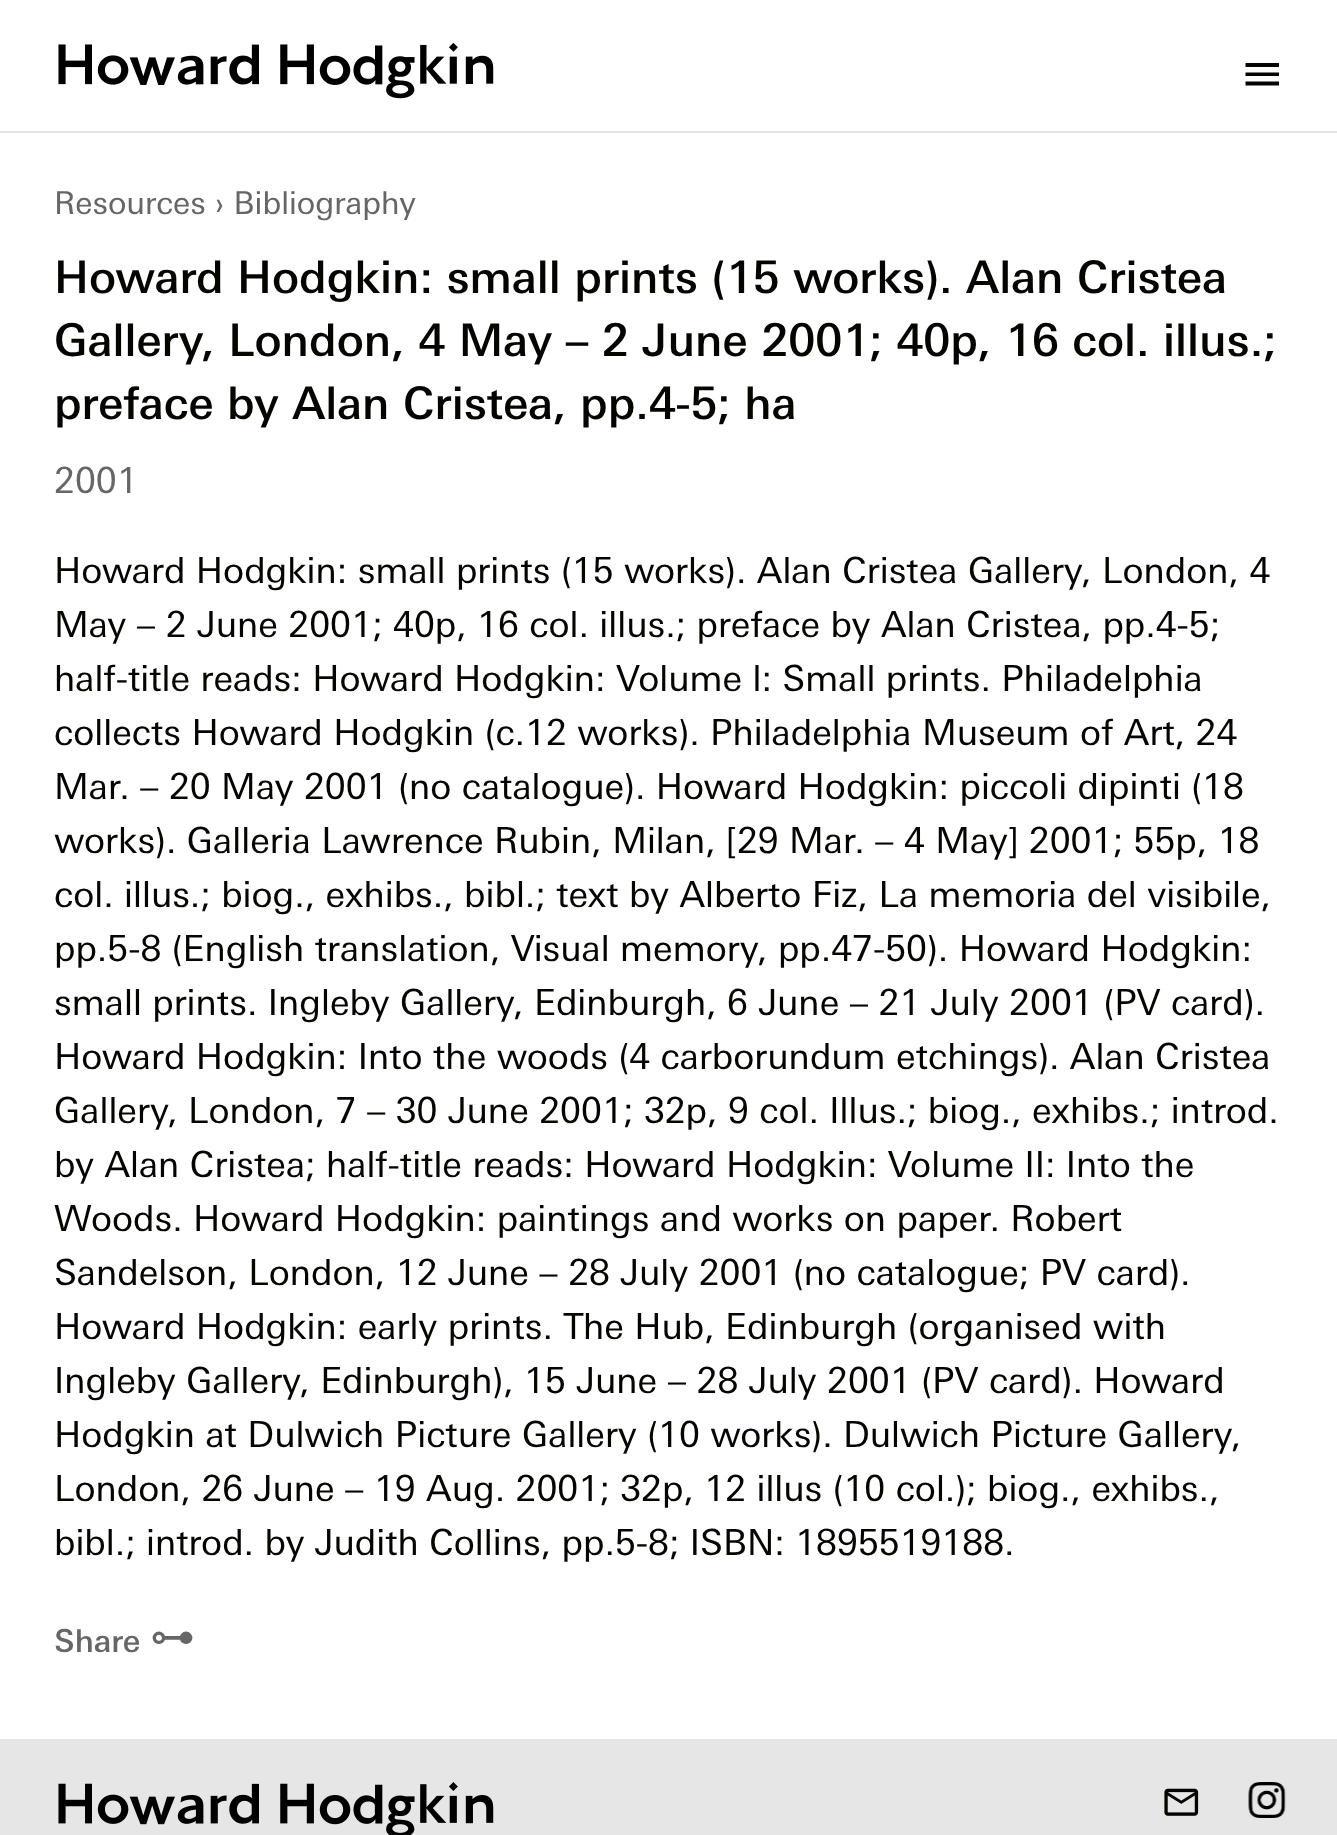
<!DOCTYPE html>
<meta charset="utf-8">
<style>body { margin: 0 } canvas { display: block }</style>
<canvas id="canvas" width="1337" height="1835"></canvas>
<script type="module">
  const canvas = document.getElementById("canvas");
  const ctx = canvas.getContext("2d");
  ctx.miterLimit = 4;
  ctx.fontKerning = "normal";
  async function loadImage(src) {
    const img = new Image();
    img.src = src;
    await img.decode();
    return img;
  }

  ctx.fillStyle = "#ffffff";
  ctx.fillRect(0, 0, 1337, 1835);
  ctx.fillStyle = "#e6e6e6";
  ctx.fillRect(0, 131, 1337, 2);
  ctx.drawImage(await loadImage("img1.png"), 58, 42, 436, 57);
  ctx.fillStyle = "#050500";
  ctx.beginPath();
  ctx.moveTo(1245.5, 63);
  ctx.lineTo(1279, 63);
  ctx.lineTo(1279, 67);
  ctx.lineTo(1245.5, 67);
  ctx.closePath();
  ctx.moveTo(1245.5, 76);
  ctx.lineTo(1245.5, 72.5);
  ctx.lineTo(1279, 72.5);
  ctx.lineTo(1279, 76);
  ctx.closePath();
  ctx.moveTo(1245.5, 85.5);
  ctx.lineTo(1245.5, 81.5);
  ctx.lineTo(1279, 81.5);
  ctx.lineTo(1279, 85.5);
  ctx.closePath();
  ctx.fill();
  ctx.font = "31.5px 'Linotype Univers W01'";
  ctx.fillStyle = "#666666";
  ctx.fillText("Resources › Bibliography", 54, 214);
  ctx.font = "500 45px 'Linotype Univers W01'";
  ctx.fillStyle = "#050500";
  ctx.fillText("Howard Hodgkin: small prints (15 works). Alan Cristea", 54, 293);
  ctx.fillText("Gallery, London, 4 May – 2 June 2001; 40p, 16 col. illus.;", 54, 356);
  ctx.fillText("preface by Alan Cristea, pp.4-5; ha", 54, 419);
  ctx.font = "36px 'Linotype Univers W01'";
  ctx.fillStyle = "#666666";
  ctx.fillText("2001", 54, 493);
  ctx.fillStyle = "#050500";
  ctx.fillText("Howard Hodgkin: small prints (15 works). Alan Cristea Gallery, London, 4", 54, 583);
  ctx.fillText("May – 2 June 2001; 40p, 16 col. illus.; preface by Alan Cristea, pp.4-5;", 54, 637);
  ctx.fillText("half-title reads: Howard Hodgkin: Volume l: Small prints. Philadelphia", 54, 691);
  ctx.fillText("collects Howard Hodgkin (c.12 works). Philadelphia Museum of Art, 24", 54, 745);
  ctx.fillText("Mar. – 20 May 2001 (no catalogue). Howard Hodgkin: piccoli dipinti (18", 54, 799);
  ctx.fillText("works). Galleria Lawrence Rubin, Milan, [29 Mar. – 4 May] 2001; 55p, 18", 54, 853);
  ctx.fillText("col. illus.; biog., exhibs., bibl.; text by Alberto Fiz, La memoria del visibile,", 54, 907);
  ctx.fillText("pp.5-8 (English translation, Visual memory, pp.47-50). Howard Hodgkin:", 54, 961);
  ctx.fillText("small prints. Ingleby Gallery, Edinburgh, 6 June – 21 July 2001 (PV card).", 54, 1015);
  ctx.fillText("Howard Hodgkin: Into the woods (4 carborundum etchings). Alan Cristea", 54, 1069);
  ctx.fillText("Gallery, London, 7 – 30 June 2001; 32p, 9 col. Illus.; biog., exhibs.; introd.", 54, 1123);
  ctx.fillText("by Alan Cristea; half-title reads: Howard Hodgkin: Volume II: Into the", 54, 1177);
  ctx.fillText("Woods. Howard Hodgkin: paintings and works on paper. Robert", 54, 1231);
  ctx.fillText("Sandelson, London, 12 June – 28 July 2001 (no catalogue; PV card).", 54, 1285);
  ctx.fillText("Howard Hodgkin: early prints. The Hub, Edinburgh (organised with", 54, 1339);
  ctx.fillText("Ingleby Gallery, Edinburgh), 15 June – 28 July 2001 (PV card). Howard", 54, 1393);
  ctx.fillText("Hodgkin at Dulwich Picture Gallery (10 works). Dulwich Picture Gallery,", 54, 1447);
  ctx.fillText("London, 26 June – 19 Aug. 2001; 32p, 12 illus (10 col.); biog., exhibs.,", 54, 1501);
  ctx.fillText("bibl.; introd. by Judith Collins, pp.5-8; ISBN: 1895519188.", 54, 1555);
  ctx.font = "500 31.5px 'Linotype Univers W01'";
  ctx.fillStyle = "#666666";
  ctx.fillText("Share", 54, 1652);
  ctx.font = "45px DejaVu Sans";
  ctx.fillText("⊶", 150, 1652);
  ctx.fillStyle = "#e6e6e6";
  ctx.fillRect(0, 1739, 1337, 96);
  ctx.drawImage(await loadImage("img2.png"), 58, 1782, 436, 53);
  ctx.drawImage(await loadImage("img3.png"), 1164, 1788, 35, 28);
  ctx.drawImage(await loadImage("img4.png"), 1248, 1782, 38, 36);
</script>
